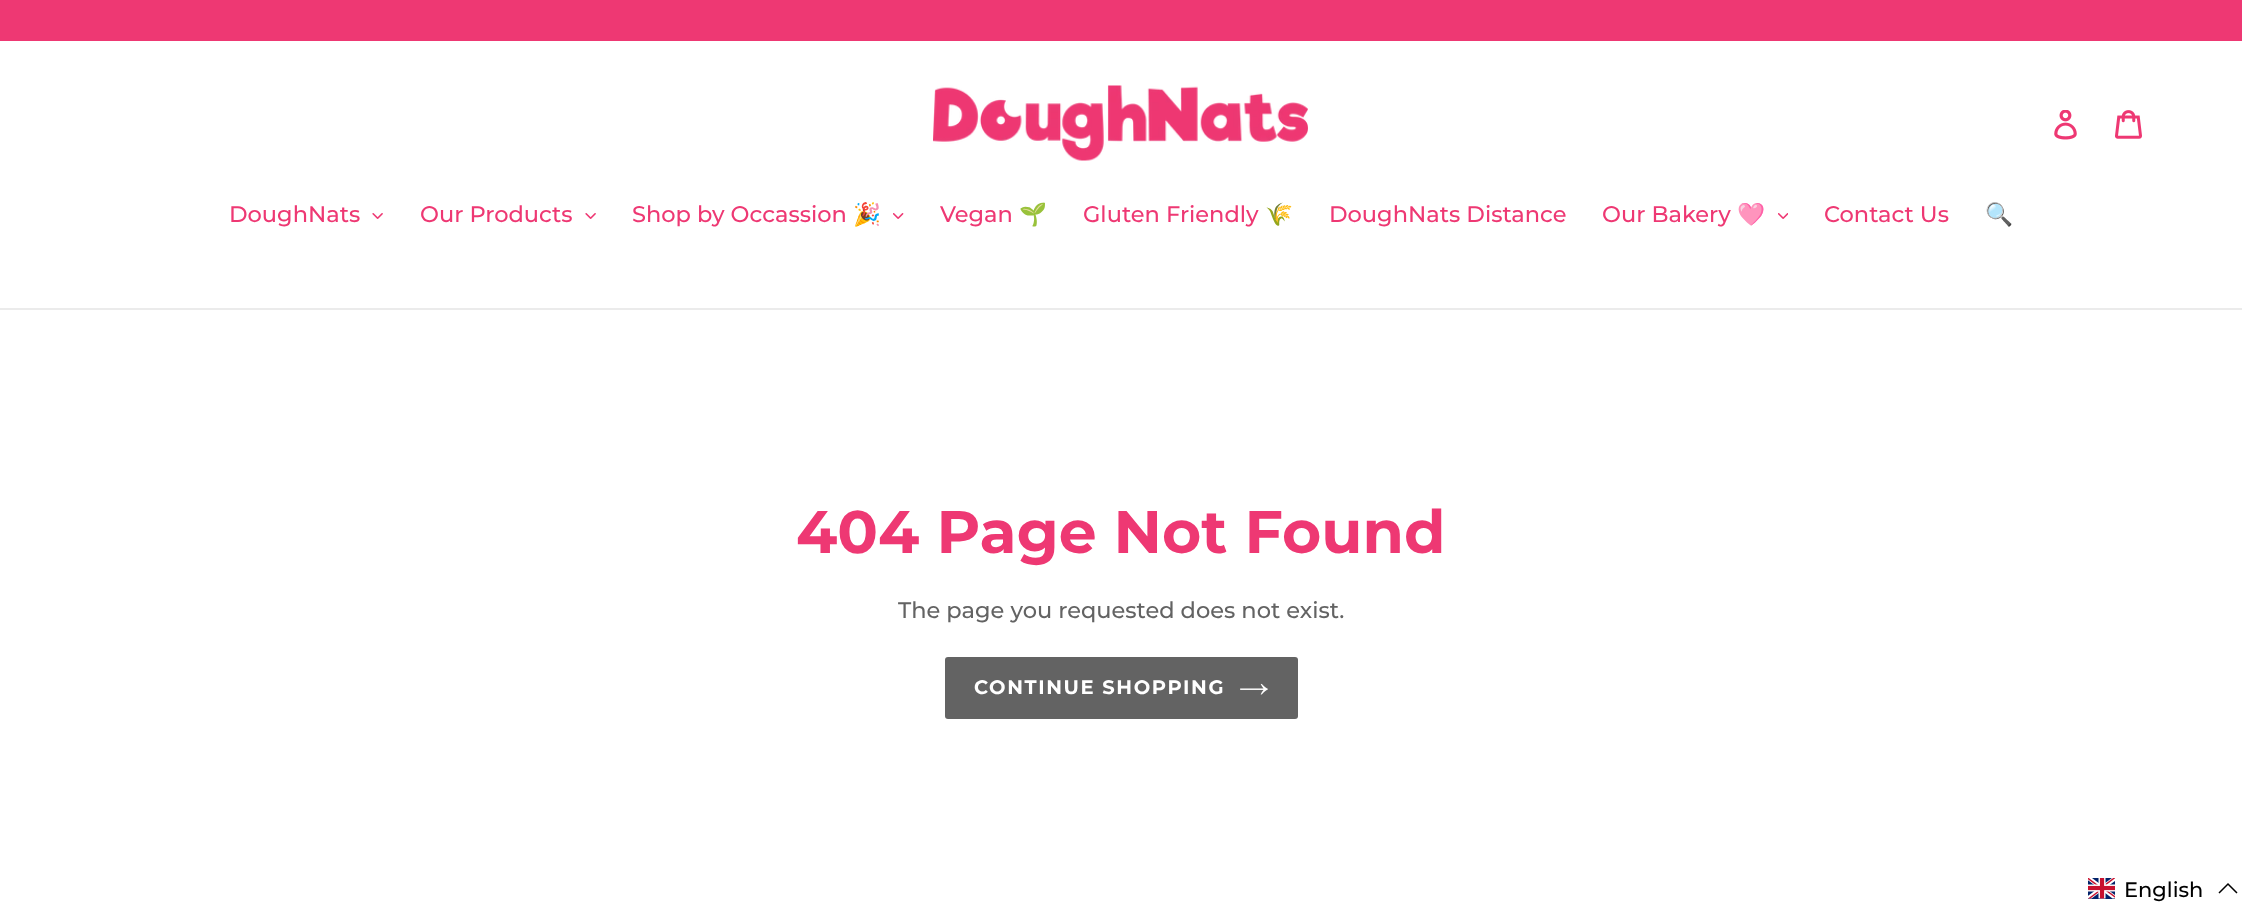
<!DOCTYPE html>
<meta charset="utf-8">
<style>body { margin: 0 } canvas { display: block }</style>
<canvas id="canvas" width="2242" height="905"></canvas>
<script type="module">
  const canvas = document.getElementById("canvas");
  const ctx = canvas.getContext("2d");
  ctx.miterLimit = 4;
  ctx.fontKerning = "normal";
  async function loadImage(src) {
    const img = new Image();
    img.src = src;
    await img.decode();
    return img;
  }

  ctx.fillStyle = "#ffffff";
  ctx.fillRect(0, 0, 2242, 905);
  ctx.fillStyle = "#ee3873";
  ctx.fillRect(0, 0, 2242, 41);
  ctx.drawImage(await loadImage("img1.png"), 933, 85, 375, 76);
  ctx.drawImage(await loadImage("img2.png"), 2054, 110, 23, 30);
  ctx.drawImage(await loadImage("img3.png"), 2115, 110, 27, 29);
  ctx.fillStyle = "#ebebeb";
  ctx.fillRect(0, 308, 2242, 2);
  ctx.font = "500 22.5px Montserrat";
  ctx.fillStyle = "#ee3873";
  ctx.fillText("DoughNats", 229, 222);
  ctx.drawImage(await loadImage("img4.png"), 372, 213, 11, 6);
  ctx.fillText("Our Products", 420, 222);
  ctx.drawImage(await loadImage("img4.png"), 585, 213, 11, 6);
  ctx.fillText("Shop by Occassion", 632, 222);
  ctx.font = "22.5px Noto Color Emoji";
  ctx.fillText("🎉", 853, 222);
  ctx.drawImage(await loadImage("img5.png"), 893, 213, 11, 6);
  ctx.font = "500 22.5px Montserrat";
  ctx.fillText("Vegan", 940, 222);
  ctx.font = "22.5px Noto Color Emoji";
  ctx.fillText("🌱", 1019, 222);
  ctx.font = "500 22.5px Montserrat";
  ctx.fillText("Gluten Friendly", 1083, 222);
  ctx.font = "22.5px Noto Color Emoji";
  ctx.fillText("🌾", 1265, 222);
  ctx.font = "500 22.5px Montserrat";
  ctx.fillText("DoughNats Distance", 1329, 222);
  ctx.fillText("Our Bakery", 1602, 222);
  ctx.font = "22.5px Noto Color Emoji";
  ctx.fillText("🩷", 1737, 222);
  ctx.drawImage(await loadImage("img6.png"), 1778, 213, 10, 6);
  ctx.font = "500 22.5px Montserrat";
  ctx.fillText("Contact Us", 1824, 222);
  ctx.font = "22.5px Noto Color Emoji";
  ctx.fillText("🔍", 1985, 222);
  ctx.font = "bold 60px Montserrat";
  ctx.fillText("404 Page Not Found", 796, 553);
  ctx.font = "500 22.5px Montserrat";
  ctx.fillStyle = "#636363";
  ctx.fillText("The page you requested does not exist.", 898, 618);
  ctx.beginPath();
  ctx.roundRect(945, 657, 353, 62, 3);
  ctx.fill();
  ctx.letterSpacing = "1.6px";
  ctx.font = "bold 19.5px Montserrat";
  ctx.fillStyle = "#ffffff";
  ctx.fillText("CONTINUE SHOPPING", 974, 694);
  ctx.drawImage(await loadImage("img7.png"), 1240, 683, 28, 12);
  ctx.drawImage(await loadImage("img8.png"), 2088, 878, 27, 21);
  ctx.letterSpacing = "0px";
  ctx.font = "500 21px Montserrat";
  ctx.fillStyle = "#000000";
  ctx.fillText("English", 2124, 897);
  ctx.beginPath();
  ctx.moveTo(2237, 893);
  ctx.lineTo(2228, 884);
  ctx.lineTo(2219, 893);
  ctx.strokeStyle = "#000000";
  ctx.lineWidth = 1.5;
  ctx.stroke();
</script>
